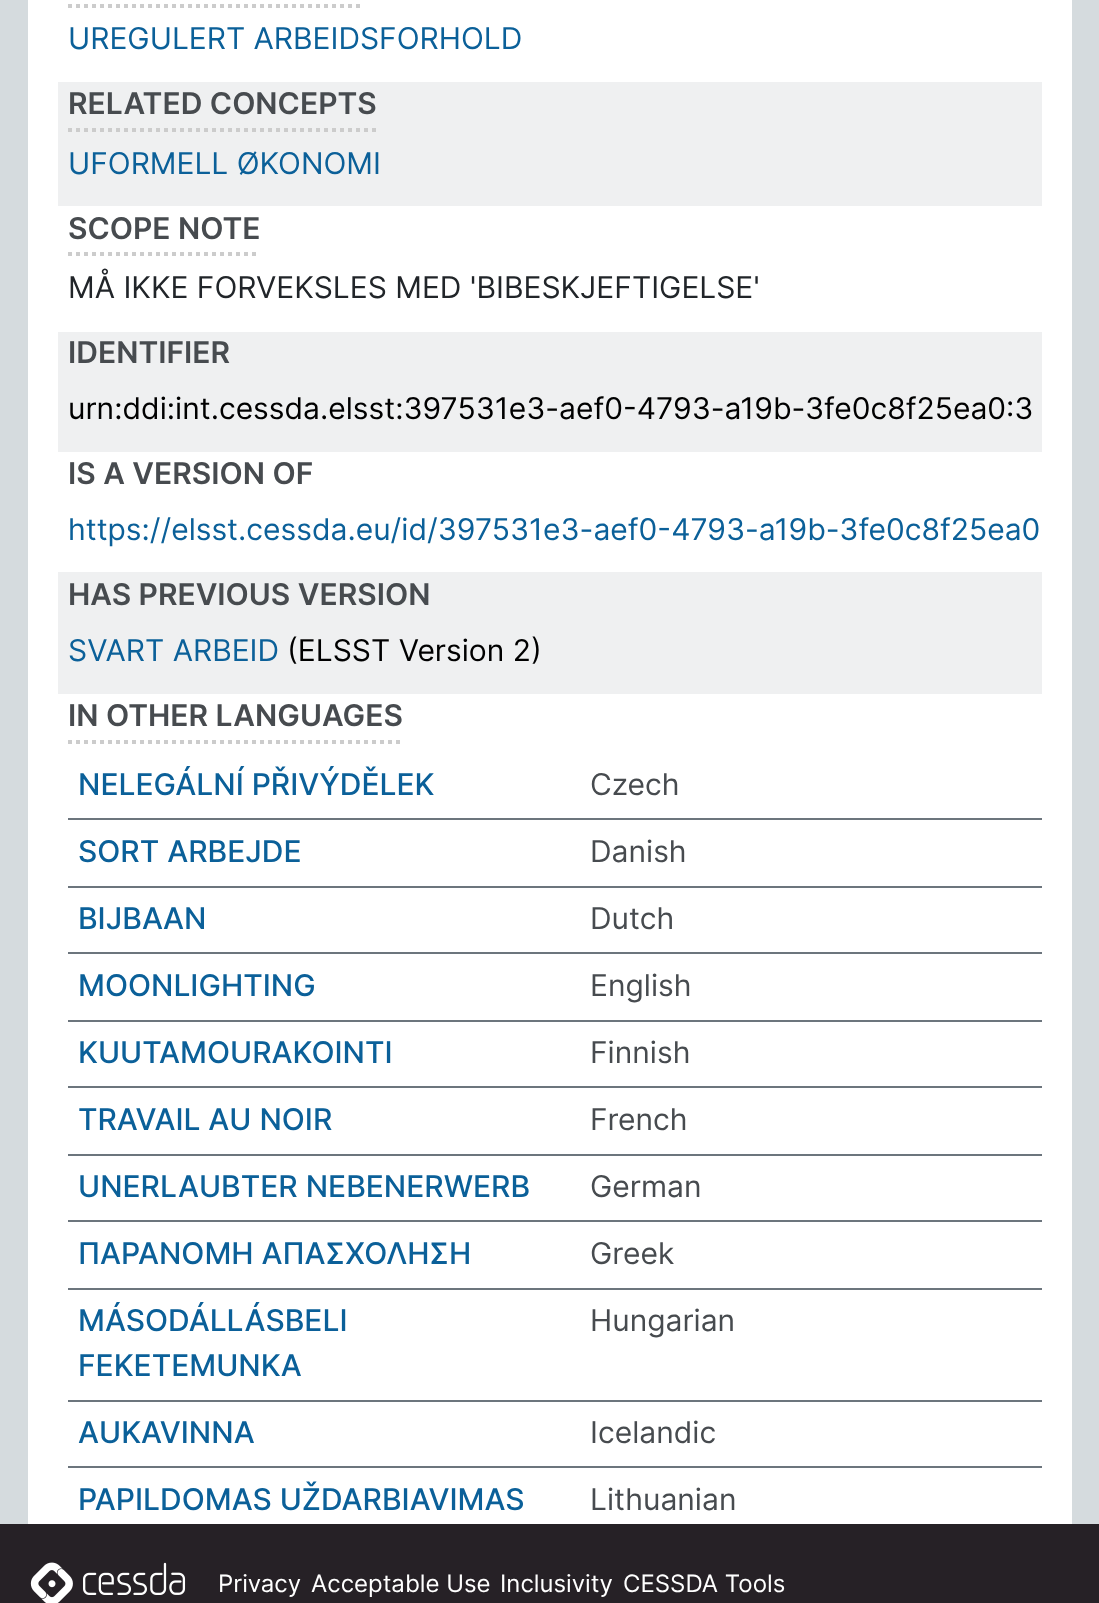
<!DOCTYPE html>
<meta charset="utf-8">
<style>body { margin: 0 } canvas { display: block }</style>
<canvas id="canvas" width="1099" height="1603"></canvas>
<script type="module">
  const canvas = document.getElementById("canvas");
  const ctx = canvas.getContext("2d");
  ctx.miterLimit = 4;
  ctx.fontKerning = "normal";
  async function loadImage(src) {
    const img = new Image();
    img.src = src;
    await img.decode();
    return img;
  }

  ctx.fillStyle = "#d5dbde";
  ctx.fillRect(0, 0, 1099, 1603);
  ctx.fillStyle = "#ffffff";
  ctx.fillRect(28, 0, 1044, 1524);
  ctx.beginPath();
  ctx.moveTo(68, 6);
  ctx.lineTo(364, 6);
  ctx.strokeStyle = "#cccccc";
  ctx.lineWidth = 4;
  ctx.setLineDash([4, 4]);
  ctx.stroke();
  ctx.font = "30px Inter";
  ctx.fillStyle = "#0b6099";
  ctx.fillText("UREGULERT ARBEIDSFORHOLD", 68, 49);
  ctx.fillStyle = "#eff0f1";
  ctx.fillRect(58, 82, 984, 124);
  ctx.beginPath();
  ctx.moveTo(68, 130);
  ctx.lineTo(376, 130);
  ctx.stroke();
  ctx.font = "600 30px Inter";
  ctx.fillStyle = "#474b4f";
  ctx.fillText("RELATED CONCEPTS", 68, 114);
  ctx.font = "30px Inter";
  ctx.fillStyle = "#0b6099";
  ctx.fillText("UFORMELL ØKONOMI", 68, 174);
  ctx.beginPath();
  ctx.moveTo(68, 254);
  ctx.lineTo(260, 254);
  ctx.stroke();
  ctx.font = "600 30px Inter";
  ctx.fillStyle = "#474b4f";
  ctx.fillText("SCOPE NOTE", 68, 239);
  ctx.font = "30px Inter";
  ctx.fillStyle = "#212529";
  ctx.fillText("MÅ IKKE FORVEKSLES MED 'BIBESKJEFTIGELSE'", 68, 298);
  ctx.fillStyle = "#eff0f1";
  ctx.fillRect(58, 332, 984, 120);
  ctx.font = "600 30px Inter";
  ctx.fillStyle = "#474b4f";
  ctx.fillText("IDENTIFIER", 68, 363);
  ctx.font = "30px Inter";
  ctx.fillStyle = "#000000";
  ctx.fillText("urn:ddi:int.cessda.elsst:397531e3-aef0-4793-a19b-3fe0c8f25ea0:3", 68, 419);
  ctx.font = "600 30px Inter";
  ctx.fillStyle = "#474b4f";
  ctx.fillText("IS A VERSION OF", 68, 484);
  ctx.font = "30px Inter";
  ctx.fillStyle = "#0b6099";
  ctx.fillText("https://elsst.cessda.eu/id/397531e3-aef0-4793-a19b-3fe0c8f25ea0", 68, 540);
  ctx.fillStyle = "#eff0f1";
  ctx.fillRect(58, 572, 984, 122);
  ctx.font = "600 30px Inter";
  ctx.fillStyle = "#474b4f";
  ctx.fillText("HAS PREVIOUS VERSION", 68, 605);
  ctx.font = "30px Inter";
  ctx.fillStyle = "#0b6099";
  ctx.fillText("SVART ARBEID", 68, 661);
  ctx.fillStyle = "#000000";
  ctx.fillText("(ELSST Version 2)", 287, 661);
  ctx.beginPath();
  ctx.moveTo(68, 742);
  ctx.lineTo(402, 742);
  ctx.stroke();
  ctx.font = "600 30px Inter";
  ctx.fillStyle = "#474b4f";
  ctx.fillText("IN OTHER LANGUAGES", 68, 726);
  ctx.font = "500 30px Inter";
  ctx.fillStyle = "#0b6099";
  ctx.fillText("NELEGÁLNÍ PŘIVÝDĚLEK", 78, 795);
  ctx.font = "30px Inter";
  ctx.fillStyle = "#474b4f";
  ctx.fillText("Czech", 590, 795);
  ctx.fillStyle = "#6c757d";
  ctx.fillRect(68, 818, 974, 2);
  ctx.font = "500 30px Inter";
  ctx.fillStyle = "#0b6099";
  ctx.fillText("SORT ARBEJDE", 78, 862);
  ctx.font = "30px Inter";
  ctx.fillStyle = "#474b4f";
  ctx.fillText("Danish", 590, 862);
  ctx.fillStyle = "#6c757d";
  ctx.fillRect(68, 886, 974, 2);
  ctx.font = "500 30px Inter";
  ctx.fillStyle = "#0b6099";
  ctx.fillText("BIJBAAN", 78, 929);
  ctx.font = "30px Inter";
  ctx.fillStyle = "#474b4f";
  ctx.fillText("Dutch", 590, 929);
  ctx.fillStyle = "#6c757d";
  ctx.fillRect(68, 952, 974, 2);
  ctx.font = "500 30px Inter";
  ctx.fillStyle = "#0b6099";
  ctx.fillText("MOONLIGHTING", 78, 996);
  ctx.font = "30px Inter";
  ctx.fillStyle = "#474b4f";
  ctx.fillText("English", 590, 996);
  ctx.fillStyle = "#6c757d";
  ctx.fillRect(68, 1020, 974, 2);
  ctx.font = "500 30px Inter";
  ctx.fillStyle = "#0b6099";
  ctx.fillText("KUUTAMOURAKOINTI", 78, 1063);
  ctx.font = "30px Inter";
  ctx.fillStyle = "#474b4f";
  ctx.fillText("Finnish", 590, 1063);
  ctx.fillStyle = "#6c757d";
  ctx.fillRect(68, 1086, 974, 2);
  ctx.font = "500 30px Inter";
  ctx.fillStyle = "#0b6099";
  ctx.fillText("TRAVAIL AU NOIR", 78, 1130);
  ctx.font = "30px Inter";
  ctx.fillStyle = "#474b4f";
  ctx.fillText("French", 590, 1130);
  ctx.fillStyle = "#6c757d";
  ctx.fillRect(68, 1154, 974, 2);
  ctx.font = "500 30px Inter";
  ctx.fillStyle = "#0b6099";
  ctx.fillText("UNERLAUBTER NEBENERWERB", 78, 1197);
  ctx.font = "30px Inter";
  ctx.fillStyle = "#474b4f";
  ctx.fillText("German", 590, 1197);
  ctx.fillStyle = "#6c757d";
  ctx.fillRect(68, 1220, 974, 2);
  ctx.font = "500 30px Inter";
  ctx.fillStyle = "#0b6099";
  ctx.fillText("ΠΑΡΑΝΟΜΗ ΑΠΑΣΧΟΛΗΣΗ", 78, 1264);
  ctx.font = "30px Inter";
  ctx.fillStyle = "#474b4f";
  ctx.fillText("Greek", 590, 1264);
  ctx.fillStyle = "#6c757d";
  ctx.fillRect(68, 1288, 974, 2);
  ctx.font = "500 30px Inter";
  ctx.fillStyle = "#0b6099";
  ctx.fillText("MÁSODÁLLÁSBELI", 78, 1331);
  ctx.fillText("FEKETEMUNKA", 78, 1376);
  ctx.font = "30px Inter";
  ctx.fillStyle = "#474b4f";
  ctx.fillText("Hungarian", 590, 1331);
  ctx.fillStyle = "#6c757d";
  ctx.fillRect(68, 1400, 974, 2);
  ctx.font = "500 30px Inter";
  ctx.fillStyle = "#0b6099";
  ctx.fillText("AUKAVINNA", 78, 1443);
  ctx.font = "30px Inter";
  ctx.fillStyle = "#474b4f";
  ctx.fillText("Icelandic", 590, 1443);
  ctx.fillStyle = "#6c757d";
  ctx.fillRect(68, 1466, 974, 2);
  ctx.font = "500 30px Inter";
  ctx.fillStyle = "#0b6099";
  ctx.fillText("PAPILDOMAS UŽDARBIAVIMAS", 78, 1510);
  ctx.font = "30px Inter";
  ctx.fillStyle = "#474b4f";
  ctx.fillText("Lithuanian", 590, 1510);
  ctx.fillStyle = "#262126";
  ctx.fillRect(0, 1524, 1099, 79);
  ctx.drawImage(await loadImage("img1.png"), 30, 1562, 156, 41);
  ctx.font = "24px Inter";
  ctx.fillStyle = "#ffffff";
  ctx.fillText("Privacy", 218, 1592);
  ctx.fillText("Acceptable Use", 311, 1592);
  ctx.fillText("Inclusivity", 500, 1592);
  ctx.fillText("CESSDA Tools", 623, 1592);
</script>
